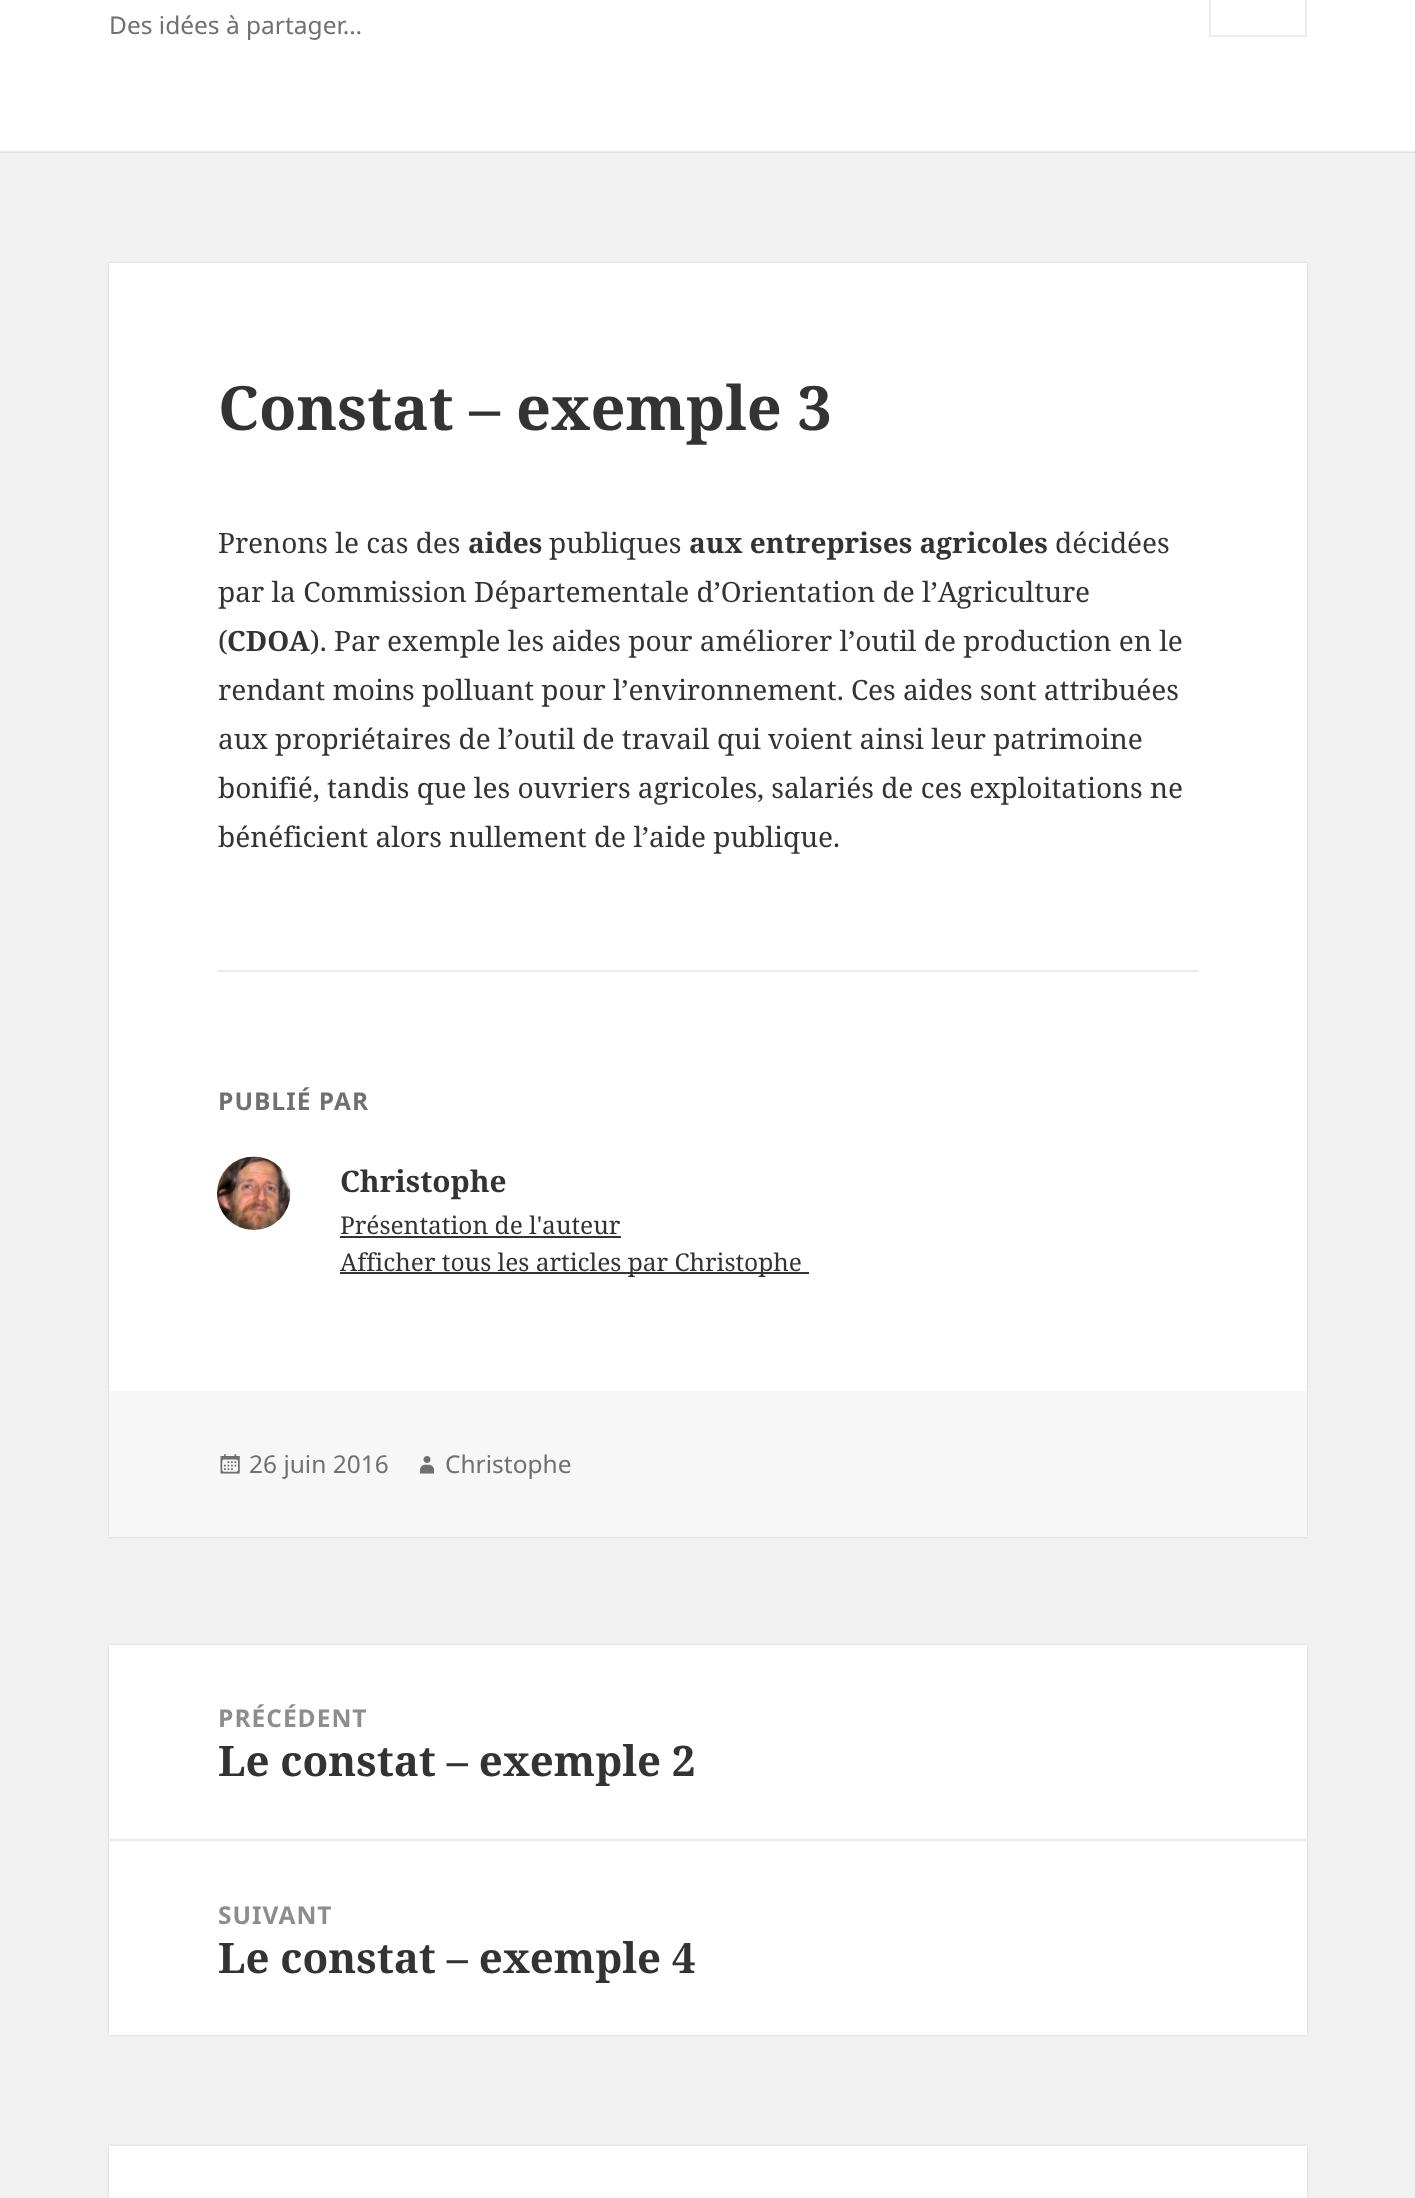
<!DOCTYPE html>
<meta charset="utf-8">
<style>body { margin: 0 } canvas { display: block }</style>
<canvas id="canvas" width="1415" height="2198"></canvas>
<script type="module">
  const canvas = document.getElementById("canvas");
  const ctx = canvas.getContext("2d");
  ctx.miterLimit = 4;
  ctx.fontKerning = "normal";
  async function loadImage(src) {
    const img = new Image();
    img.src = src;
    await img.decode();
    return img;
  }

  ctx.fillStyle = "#f1f1f1";
  ctx.fillRect(0, 0, 1415, 2198);
  ctx.fillStyle = "#dedede";
  ctx.fillRect(0, 152, 1415, 1);
  ctx.fillStyle = "#ffffff";
  ctx.fillRect(0, 0, 1415, 151);
  ctx.fillStyle = "#ebebeb";
  ctx.fillRect(0, 151, 1415, 1);
  ctx.font = "24.5px Noto Sans";
  ctx.fillStyle = "#707070";
  ctx.fillText("Des idées à partager…", 109, 34);
  ctx.strokeStyle = "#ebebeb";
  ctx.lineWidth = 2;
  ctx.strokeRect(1210, -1, 96, 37);
  ctx.fillStyle = "rgba(0, 0, 0, 0.15)";
  ctx.filter = "blur(1px)";
  ctx.beginPath();
  ctx.rect(109, 263, 1198, 1274);
  ctx.fill();
  ctx.filter = "none";
  ctx.fillStyle = "#ffffff";
  ctx.fillRect(109, 263, 1198, 1128);
  ctx.font = "bold 61.25px Noto Serif";
  ctx.fillStyle = "#333333";
  ctx.fillText("Constat – exemple 3", 218, 430);
  ctx.font = "28px Noto Serif";
  ctx.fillText("Prenons le cas des", 218, 553);
  ctx.font = "bold 28px Noto Serif";
  ctx.fillText("aides", 468, 553);
  ctx.font = "28px Noto Serif";
  ctx.fillText("publiques", 549, 553);
  ctx.font = "bold 28px Noto Serif";
  ctx.fillText("aux entreprises agricoles", 689, 553);
  ctx.font = "28px Noto Serif";
  ctx.fillText("décidées", 1055, 553);
  ctx.fillText("par la Commission Départementale d’Orientation de l’Agriculture", 218, 602);
  ctx.fillText("(", 218, 651);
  ctx.font = "bold 28px Noto Serif";
  ctx.fillText("CDOA", 227, 651);
  ctx.font = "28px Noto Serif";
  ctx.fillText("). Par exemple les aides pour améliorer l’outil de production en le", 310, 651);
  ctx.fillText("rendant moins polluant pour l’environnement. Ces aides sont attribuées", 218, 700);
  ctx.fillText("aux propriétaires de l’outil de travail qui voient ainsi leur patrimoine", 218, 749);
  ctx.fillText("bonifié, tandis que les ouvriers agricoles, salariés de ces exploitations ne", 218, 798);
  ctx.fillText("bénéficient alors nullement de l’aide publique.", 218, 847);
  ctx.fillStyle = "#ebebeb";
  ctx.fillRect(217, 970, 982, 2);
  ctx.letterSpacing = "1px";
  ctx.font = "bold 24.5px Noto Sans";
  ctx.fillStyle = "#707070";
  ctx.fillText("PUBLIÉ PAR", 218, 1110);
  ctx.drawImage(await loadImage("img1.png"), 217, 1156, 74, 74);
  ctx.letterSpacing = "0px";
  ctx.font = "bold 29.75px Noto Serif";
  ctx.fillStyle = "#333333";
  ctx.fillText("Christophe", 340, 1192);
  ctx.font = "24.5px Noto Serif";
  ctx.fillText("Présentation de l'auteur", 340, 1234);
  ctx.fillRect(340, 1236, 281, 2);
  ctx.fillRect(340, 1272, 469, 2);
  ctx.fillText("Afficher tous les articles par Christophe", 340, 1271);
  ctx.fillStyle = "#f7f7f7";
  ctx.fillRect(109, 1391, 1198, 146);
  ctx.drawImage(await loadImage("img2.png"), 220, 1454, 20, 20);
  ctx.font = "24.5px Noto Sans";
  ctx.fillStyle = "#707070";
  ctx.fillText("26 juin 2016", 249, 1473);
  ctx.drawImage(await loadImage("img3.png"), 420, 1456, 14, 18);
  ctx.fillText("Christophe", 445, 1473);
  ctx.fillStyle = "rgba(0, 0, 0, 0.15)";
  ctx.filter = "blur(1px)";
  ctx.beginPath();
  ctx.rect(109, 1645, 1198, 390);
  ctx.fill();
  ctx.filter = "none";
  ctx.fillStyle = "#ffffff";
  ctx.fillRect(109, 1645, 1198, 390);
  ctx.letterSpacing = "1px";
  ctx.font = "bold 24.5px Noto Sans";
  ctx.fillStyle = "#8d8d8d";
  ctx.fillText("PRÉCÉDENT", 218, 1727);
  ctx.letterSpacing = "0px";
  ctx.font = "bold 42px Noto Serif";
  ctx.fillStyle = "#333333";
  ctx.fillText("Le constat – exemple 2", 218, 1776);
  ctx.fillStyle = "#ebebeb";
  ctx.fillRect(109, 1839, 1198, 2);
  ctx.letterSpacing = "1px";
  ctx.font = "bold 24.5px Noto Sans";
  ctx.fillStyle = "#8d8d8d";
  ctx.fillText("SUIVANT", 218, 1924);
  ctx.letterSpacing = "0px";
  ctx.font = "bold 42px Noto Serif";
  ctx.fillStyle = "#333333";
  ctx.fillText("Le constat – exemple 4", 218, 1973);
  ctx.fillStyle = "rgba(0, 0, 0, 0.15)";
  ctx.filter = "blur(1px)";
  ctx.beginPath();
  ctx.rect(109, 2146, 1198, 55);
  ctx.fill();
  ctx.filter = "none";
  ctx.fillStyle = "#ffffff";
  ctx.fillRect(109, 2146, 1198, 52);
</script>
